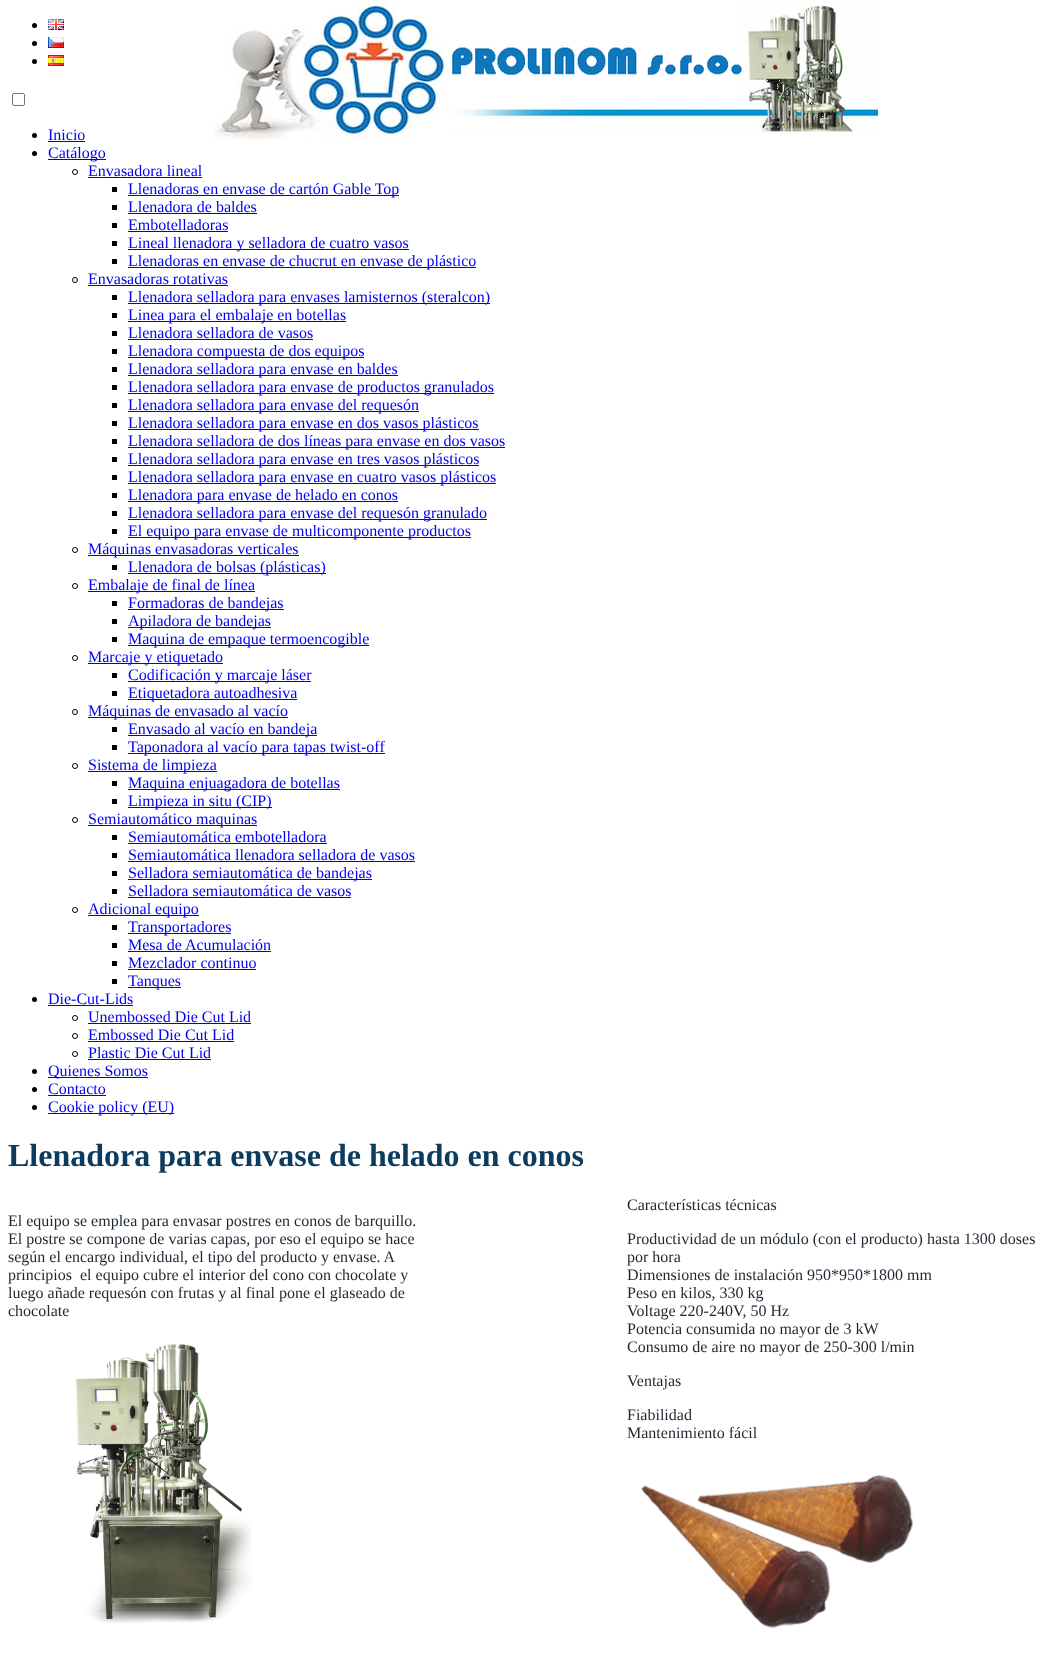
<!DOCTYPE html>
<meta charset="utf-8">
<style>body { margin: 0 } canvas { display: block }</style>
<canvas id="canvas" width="1064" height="1661"></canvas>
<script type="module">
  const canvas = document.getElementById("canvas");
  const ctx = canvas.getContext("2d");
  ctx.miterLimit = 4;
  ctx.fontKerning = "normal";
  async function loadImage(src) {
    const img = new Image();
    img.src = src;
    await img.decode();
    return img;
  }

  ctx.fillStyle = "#ffffff";
  ctx.fillRect(0, 0, 1064, 1661);
  ctx.drawImage(await loadImage("img1.png"), 214, 0, 664, 140);
  ctx.fillStyle = "#000000";
  ctx.beginPath();
  ctx.arc(34.5, 25.5, 2.5, 0, Math.PI * 2);
  ctx.fill();
  ctx.drawImage(await loadImage("img2.png"), 48, 19, 16, 11);
  ctx.beginPath();
  ctx.arc(34.5, 43.5, 2.5, 0, Math.PI * 2);
  ctx.fill();
  ctx.drawImage(await loadImage("img3.png"), 48, 37, 16, 11);
  ctx.beginPath();
  ctx.arc(34.5, 61.5, 2.5, 0, Math.PI * 2);
  ctx.fill();
  ctx.drawImage(await loadImage("img4.png"), 48, 55, 16, 11);
  ctx.beginPath();
  ctx.roundRect(12.5, 93.5, 12, 12, 1.5);
  ctx.strokeStyle = "#767676";
  ctx.stroke();
  ctx.beginPath();
  ctx.arc(34.5, 135.5, 2.5, 0, Math.PI * 2);
  ctx.fill();
  ctx.font = "16px Liberation Serif";
  ctx.fillStyle = "#0000ee";
  ctx.fillText("Inicio", 48, 140);
  ctx.fillRect(48, 141, 37, 1);
  ctx.fillStyle = "#000000";
  ctx.beginPath();
  ctx.arc(34.5, 153.5, 2.5, 0, Math.PI * 2);
  ctx.fill();
  ctx.fillStyle = "#0000ee";
  ctx.fillRect(48, 159, 58, 1);
  ctx.fillText("Catálogo", 48, 158);
  ctx.beginPath();
  ctx.arc(75, 172, 2.5, 0, Math.PI * 2);
  ctx.strokeStyle = "#000000";
  ctx.stroke();
  ctx.fillText("Envasadora lineal", 88, 176);
  ctx.fillRect(88, 177, 114, 1);
  ctx.fillStyle = "#000000";
  ctx.fillRect(112, 187, 5, 5);
  ctx.fillStyle = "#0000ee";
  ctx.fillRect(128, 195, 271, 1);
  ctx.fillText("Llenadoras en envase de cartón Gable Top", 128, 194);
  ctx.fillStyle = "#000000";
  ctx.fillRect(112, 205, 5, 5);
  ctx.fillStyle = "#0000ee";
  ctx.fillText("Llenadora de baldes", 128, 212);
  ctx.fillRect(128, 213, 129, 1);
  ctx.fillStyle = "#000000";
  ctx.fillRect(112, 223, 5, 5);
  ctx.fillStyle = "#0000ee";
  ctx.fillText("Embotelladoras", 128, 230);
  ctx.fillRect(128, 231, 100, 1);
  ctx.fillStyle = "#000000";
  ctx.fillRect(112, 241, 5, 5);
  ctx.fillStyle = "#0000ee";
  ctx.fillRect(128, 249, 281, 1);
  ctx.fillText("Lineal llenadora y selladora de cuatro vasos", 128, 248);
  ctx.fillStyle = "#000000";
  ctx.fillRect(112, 259, 5, 5);
  ctx.fillStyle = "#0000ee";
  ctx.fillRect(128, 267, 348, 1);
  ctx.fillText("Llenadoras en envase de chucrut en envase de plástico", 128, 266);
  ctx.beginPath();
  ctx.arc(75, 280, 2.5, 0, Math.PI * 2);
  ctx.stroke();
  ctx.fillText("Envasadoras rotativas", 88, 284);
  ctx.fillRect(88, 285, 140, 1);
  ctx.fillStyle = "#000000";
  ctx.fillRect(112, 295, 5, 5);
  ctx.fillStyle = "#0000ee";
  ctx.fillRect(128, 303, 362, 1);
  ctx.fillText("Llenadora selladora para envases lamisternos (steralcon)", 128, 302);
  ctx.fillStyle = "#000000";
  ctx.fillRect(112, 313, 5, 5);
  ctx.fillStyle = "#0000ee";
  ctx.fillRect(128, 321, 218, 1);
  ctx.fillText("Linea para el embalaje en botellas", 128, 320);
  ctx.fillStyle = "#000000";
  ctx.fillRect(112, 331, 5, 5);
  ctx.fillStyle = "#0000ee";
  ctx.fillText("Llenadora selladora de vasos", 128, 338);
  ctx.fillRect(128, 339, 185, 1);
  ctx.fillStyle = "#000000";
  ctx.fillRect(112, 349, 5, 5);
  ctx.fillStyle = "#0000ee";
  ctx.fillRect(128, 357, 236, 1);
  ctx.fillText("Llenadora compuesta de dos equipos", 128, 356);
  ctx.fillStyle = "#000000";
  ctx.fillRect(112, 367, 5, 5);
  ctx.fillStyle = "#0000ee";
  ctx.fillRect(128, 375, 270, 1);
  ctx.fillText("Llenadora selladora para envase en baldes", 128, 374);
  ctx.fillStyle = "#000000";
  ctx.fillRect(112, 385, 5, 5);
  ctx.fillStyle = "#0000ee";
  ctx.fillRect(128, 393, 366, 1);
  ctx.fillText("Llenadora selladora para envase de productos granulados", 128, 392);
  ctx.fillStyle = "#000000";
  ctx.fillRect(112, 403, 5, 5);
  ctx.fillStyle = "#0000ee";
  ctx.fillRect(128, 411, 291, 1);
  ctx.fillText("Llenadora selladora para envase del requesón", 128, 410);
  ctx.fillStyle = "#000000";
  ctx.fillRect(112, 421, 5, 5);
  ctx.fillStyle = "#0000ee";
  ctx.fillRect(128, 429, 351, 1);
  ctx.fillText("Llenadora selladora para envase en dos vasos plásticos", 128, 428);
  ctx.fillStyle = "#000000";
  ctx.fillRect(112, 439, 5, 5);
  ctx.fillStyle = "#0000ee";
  ctx.fillRect(128, 447, 377, 1);
  ctx.fillText("Llenadora selladora de dos líneas para envase en dos vasos", 128, 446);
  ctx.fillStyle = "#000000";
  ctx.fillRect(112, 457, 5, 5);
  ctx.fillStyle = "#0000ee";
  ctx.fillRect(128, 465, 351, 1);
  ctx.fillText("Llenadora selladora para envase en tres vasos plásticos", 128, 464);
  ctx.fillStyle = "#000000";
  ctx.fillRect(112, 475, 5, 5);
  ctx.fillStyle = "#0000ee";
  ctx.fillRect(128, 483, 368, 1);
  ctx.fillText("Llenadora selladora para envase en cuatro vasos plásticos", 128, 482);
  ctx.fillStyle = "#000000";
  ctx.fillRect(112, 493, 5, 5);
  ctx.fillStyle = "#0000ee";
  ctx.fillRect(128, 501, 270, 1);
  ctx.fillText("Llenadora para envase de helado en conos", 128, 500);
  ctx.fillStyle = "#000000";
  ctx.fillRect(112, 511, 5, 5);
  ctx.fillStyle = "#0000ee";
  ctx.fillRect(128, 519, 359, 1);
  ctx.fillText("Llenadora selladora para envase del requesón granulado", 128, 518);
  ctx.fillStyle = "#000000";
  ctx.fillRect(112, 529, 5, 5);
  ctx.fillStyle = "#0000ee";
  ctx.fillRect(128, 537, 343, 1);
  ctx.fillText("El equipo para envase de multicomponente productos", 128, 536);
  ctx.beginPath();
  ctx.arc(75, 550, 2.5, 0, Math.PI * 2);
  ctx.stroke();
  ctx.fillRect(88, 555, 211, 1);
  ctx.fillText("Máquinas envasadoras verticales", 88, 554);
  ctx.fillStyle = "#000000";
  ctx.fillRect(112, 565, 5, 5);
  ctx.fillStyle = "#0000ee";
  ctx.fillRect(128, 573, 198, 1);
  ctx.fillText("Llenadora de bolsas (plásticas)", 128, 572);
  ctx.beginPath();
  ctx.arc(75, 586, 2.5, 0, Math.PI * 2);
  ctx.stroke();
  ctx.fillRect(88, 591, 167, 1);
  ctx.fillText("Embalaje de final de línea", 88, 590);
  ctx.fillStyle = "#000000";
  ctx.fillRect(112, 601, 5, 5);
  ctx.fillStyle = "#0000ee";
  ctx.fillRect(128, 609, 156, 1);
  ctx.fillText("Formadoras de bandejas", 128, 608);
  ctx.fillStyle = "#000000";
  ctx.fillRect(112, 619, 5, 5);
  ctx.fillStyle = "#0000ee";
  ctx.fillRect(128, 627, 143, 1);
  ctx.fillText("Apiladora de bandejas", 128, 626);
  ctx.fillStyle = "#000000";
  ctx.fillRect(112, 637, 5, 5);
  ctx.fillStyle = "#0000ee";
  ctx.fillRect(128, 645, 241, 1);
  ctx.fillText("Maquina de empaque termoencogible", 128, 644);
  ctx.beginPath();
  ctx.arc(75, 658, 2.5, 0, Math.PI * 2);
  ctx.stroke();
  ctx.fillRect(88, 663, 135, 1);
  ctx.fillText("Marcaje y etiquetado", 88, 662);
  ctx.fillStyle = "#000000";
  ctx.fillRect(112, 673, 5, 5);
  ctx.fillStyle = "#0000ee";
  ctx.fillRect(128, 681, 183, 1);
  ctx.fillText("Codificación y marcaje láser", 128, 680);
  ctx.fillStyle = "#000000";
  ctx.fillRect(112, 691, 5, 5);
  ctx.fillStyle = "#0000ee";
  ctx.fillRect(128, 699, 169, 1);
  ctx.fillText("Etiquetadora autoadhesiva", 128, 698);
  ctx.beginPath();
  ctx.arc(75, 712, 2.5, 0, Math.PI * 2);
  ctx.stroke();
  ctx.fillRect(88, 717, 200, 1);
  ctx.fillText("Máquinas de envasado al vacío", 88, 716);
  ctx.fillStyle = "#000000";
  ctx.fillRect(112, 727, 5, 5);
  ctx.fillStyle = "#0000ee";
  ctx.fillRect(128, 735, 189, 1);
  ctx.fillText("Envasado al vacío en bandeja", 128, 734);
  ctx.fillStyle = "#000000";
  ctx.fillRect(112, 745, 5, 5);
  ctx.fillStyle = "#0000ee";
  ctx.fillRect(128, 753, 257, 1);
  ctx.fillText("Taponadora al vacío para tapas twist-off", 128, 752);
  ctx.beginPath();
  ctx.arc(75, 766, 2.5, 0, Math.PI * 2);
  ctx.stroke();
  ctx.fillRect(88, 771, 129, 1);
  ctx.fillText("Sistema de limpieza", 88, 770);
  ctx.fillStyle = "#000000";
  ctx.fillRect(112, 781, 5, 5);
  ctx.fillStyle = "#0000ee";
  ctx.fillRect(128, 789, 212, 1);
  ctx.fillText("Maquina enjuagadora de botellas", 128, 788);
  ctx.fillStyle = "#000000";
  ctx.fillRect(112, 799, 5, 5);
  ctx.fillStyle = "#0000ee";
  ctx.fillRect(128, 807, 144, 1);
  ctx.fillText("Limpieza in situ (CIP)", 128, 806);
  ctx.beginPath();
  ctx.arc(75, 820, 2.5, 0, Math.PI * 2);
  ctx.stroke();
  ctx.fillRect(88, 825, 169, 1);
  ctx.fillText("Semiautomático maquinas", 88, 824);
  ctx.fillStyle = "#000000";
  ctx.fillRect(112, 835, 5, 5);
  ctx.fillStyle = "#0000ee";
  ctx.fillText("Semiautomática embotelladora", 128, 842);
  ctx.fillRect(128, 843, 199, 1);
  ctx.fillStyle = "#000000";
  ctx.fillRect(112, 853, 5, 5);
  ctx.fillStyle = "#0000ee";
  ctx.fillText("Semiautomática llenadora selladora de vasos", 128, 860);
  ctx.fillRect(128, 861, 287, 1);
  ctx.fillStyle = "#000000";
  ctx.fillRect(112, 871, 5, 5);
  ctx.fillStyle = "#0000ee";
  ctx.fillRect(128, 879, 244, 1);
  ctx.fillText("Selladora semiautomática de bandejas", 128, 878);
  ctx.fillStyle = "#000000";
  ctx.fillRect(112, 889, 5, 5);
  ctx.fillStyle = "#0000ee";
  ctx.fillText("Selladora semiautomática de vasos", 128, 896);
  ctx.fillRect(128, 897, 223, 1);
  ctx.beginPath();
  ctx.arc(75, 910, 2.5, 0, Math.PI * 2);
  ctx.stroke();
  ctx.fillRect(88, 915, 111, 1);
  ctx.fillText("Adicional equipo", 88, 914);
  ctx.fillStyle = "#000000";
  ctx.fillRect(112, 925, 5, 5);
  ctx.fillStyle = "#0000ee";
  ctx.fillRect(128, 933, 103, 1);
  ctx.fillText("Transportadores", 128, 932);
  ctx.fillStyle = "#000000";
  ctx.fillRect(112, 943, 5, 5);
  ctx.fillStyle = "#0000ee";
  ctx.fillText("Mesa de Acumulación", 128, 950);
  ctx.fillRect(128, 951, 143, 1);
  ctx.fillStyle = "#000000";
  ctx.fillRect(112, 961, 5, 5);
  ctx.fillStyle = "#0000ee";
  ctx.fillText("Mezclador continuo", 128, 968);
  ctx.fillRect(128, 969, 128, 1);
  ctx.fillStyle = "#000000";
  ctx.fillRect(112, 979, 5, 5);
  ctx.fillStyle = "#0000ee";
  ctx.fillRect(128, 987, 53, 1);
  ctx.fillText("Tanques", 128, 986);
  ctx.fillStyle = "#000000";
  ctx.beginPath();
  ctx.arc(34.5, 999.5, 2.5, 0, Math.PI * 2);
  ctx.fill();
  ctx.fillStyle = "#0000ee";
  ctx.fillText("Die-Cut-Lids", 48, 1004);
  ctx.fillRect(48, 1005, 85, 1);
  ctx.beginPath();
  ctx.arc(75, 1018, 2.5, 0, Math.PI * 2);
  ctx.stroke();
  ctx.fillText("Unembossed Die Cut Lid", 88, 1022);
  ctx.fillRect(88, 1023, 163, 1);
  ctx.beginPath();
  ctx.arc(75, 1036, 2.5, 0, Math.PI * 2);
  ctx.stroke();
  ctx.fillText("Embossed Die Cut Lid", 88, 1040);
  ctx.fillRect(88, 1041, 146, 1);
  ctx.beginPath();
  ctx.arc(75, 1054, 2.5, 0, Math.PI * 2);
  ctx.stroke();
  ctx.fillText("Plastic Die Cut Lid", 88, 1058);
  ctx.fillRect(88, 1059, 123, 1);
  ctx.fillStyle = "#000000";
  ctx.beginPath();
  ctx.arc(34.5, 1071.5, 2.5, 0, Math.PI * 2);
  ctx.fill();
  ctx.fillStyle = "#0000ee";
  ctx.fillRect(48, 1077, 100, 1);
  ctx.fillText("Quienes Somos", 48, 1076);
  ctx.fillStyle = "#000000";
  ctx.beginPath();
  ctx.arc(34.5, 1089.5, 2.5, 0, Math.PI * 2);
  ctx.fill();
  ctx.fillStyle = "#0000ee";
  ctx.fillText("Contacto", 48, 1094);
  ctx.fillRect(48, 1095, 58, 1);
  ctx.fillStyle = "#000000";
  ctx.beginPath();
  ctx.arc(34.5, 1107.5, 2.5, 0, Math.PI * 2);
  ctx.fill();
  ctx.fillStyle = "#0000ee";
  ctx.fillRect(48, 1113, 126, 1);
  ctx.fillText("Cookie policy (EU)", 48, 1112);
  ctx.font = "bold 32px Liberation Serif";
  ctx.fillStyle = "#0b3c5d";
  ctx.fillText("Llenadora para envase de helado en conos", 8, 1166);
  ctx.font = "16px Liberation Serif";
  ctx.fillStyle = "#1d2731";
  ctx.fillText("El equipo se emplea para envasar postres en conos de barquillo.", 8, 1226);
  ctx.fillText("El postre se compone de varias capas, por eso el equipo se hace", 8, 1244);
  ctx.fillText("según el encargo individual, el tipo del producto y envase. A", 8, 1262);
  ctx.fillText("principios  el equipo cubre el interior del cono con chocolate y", 8, 1280);
  ctx.fillText("luego añade requesón con frutas y al final pone el glaseado de", 8, 1298);
  ctx.fillText("chocolate", 8, 1316);
  ctx.drawImage(await loadImage("img5.png"), 75, 1344, 177, 280);
  ctx.fillText("Características técnicas", 627, 1210);
  ctx.fillText("Productividad de un módulo (con el producto) hasta 1300 doses", 627, 1244);
  ctx.fillText("por hora", 627, 1262);
  ctx.fillText("Dimensiones de instalación 950*950*1800 mm", 627, 1280);
  ctx.fillText("Peso en kilos, 330 kg", 627, 1298);
  ctx.fillText("Voltage 220-240V, 50 Hz", 627, 1316);
  ctx.fillText("Potencia consumida no mayor de 3 kW", 627, 1334);
  ctx.fillText("Consumo de aire no mayor de 250-300 l/min", 627, 1352);
  ctx.fillText("Ventajas", 627, 1386);
  ctx.fillText("Fiabilidad", 627, 1420);
  ctx.fillText("Mantenimiento fácil", 627, 1438);
  ctx.drawImage(await loadImage("img6.png"), 641, 1475, 272, 153);
</script>
